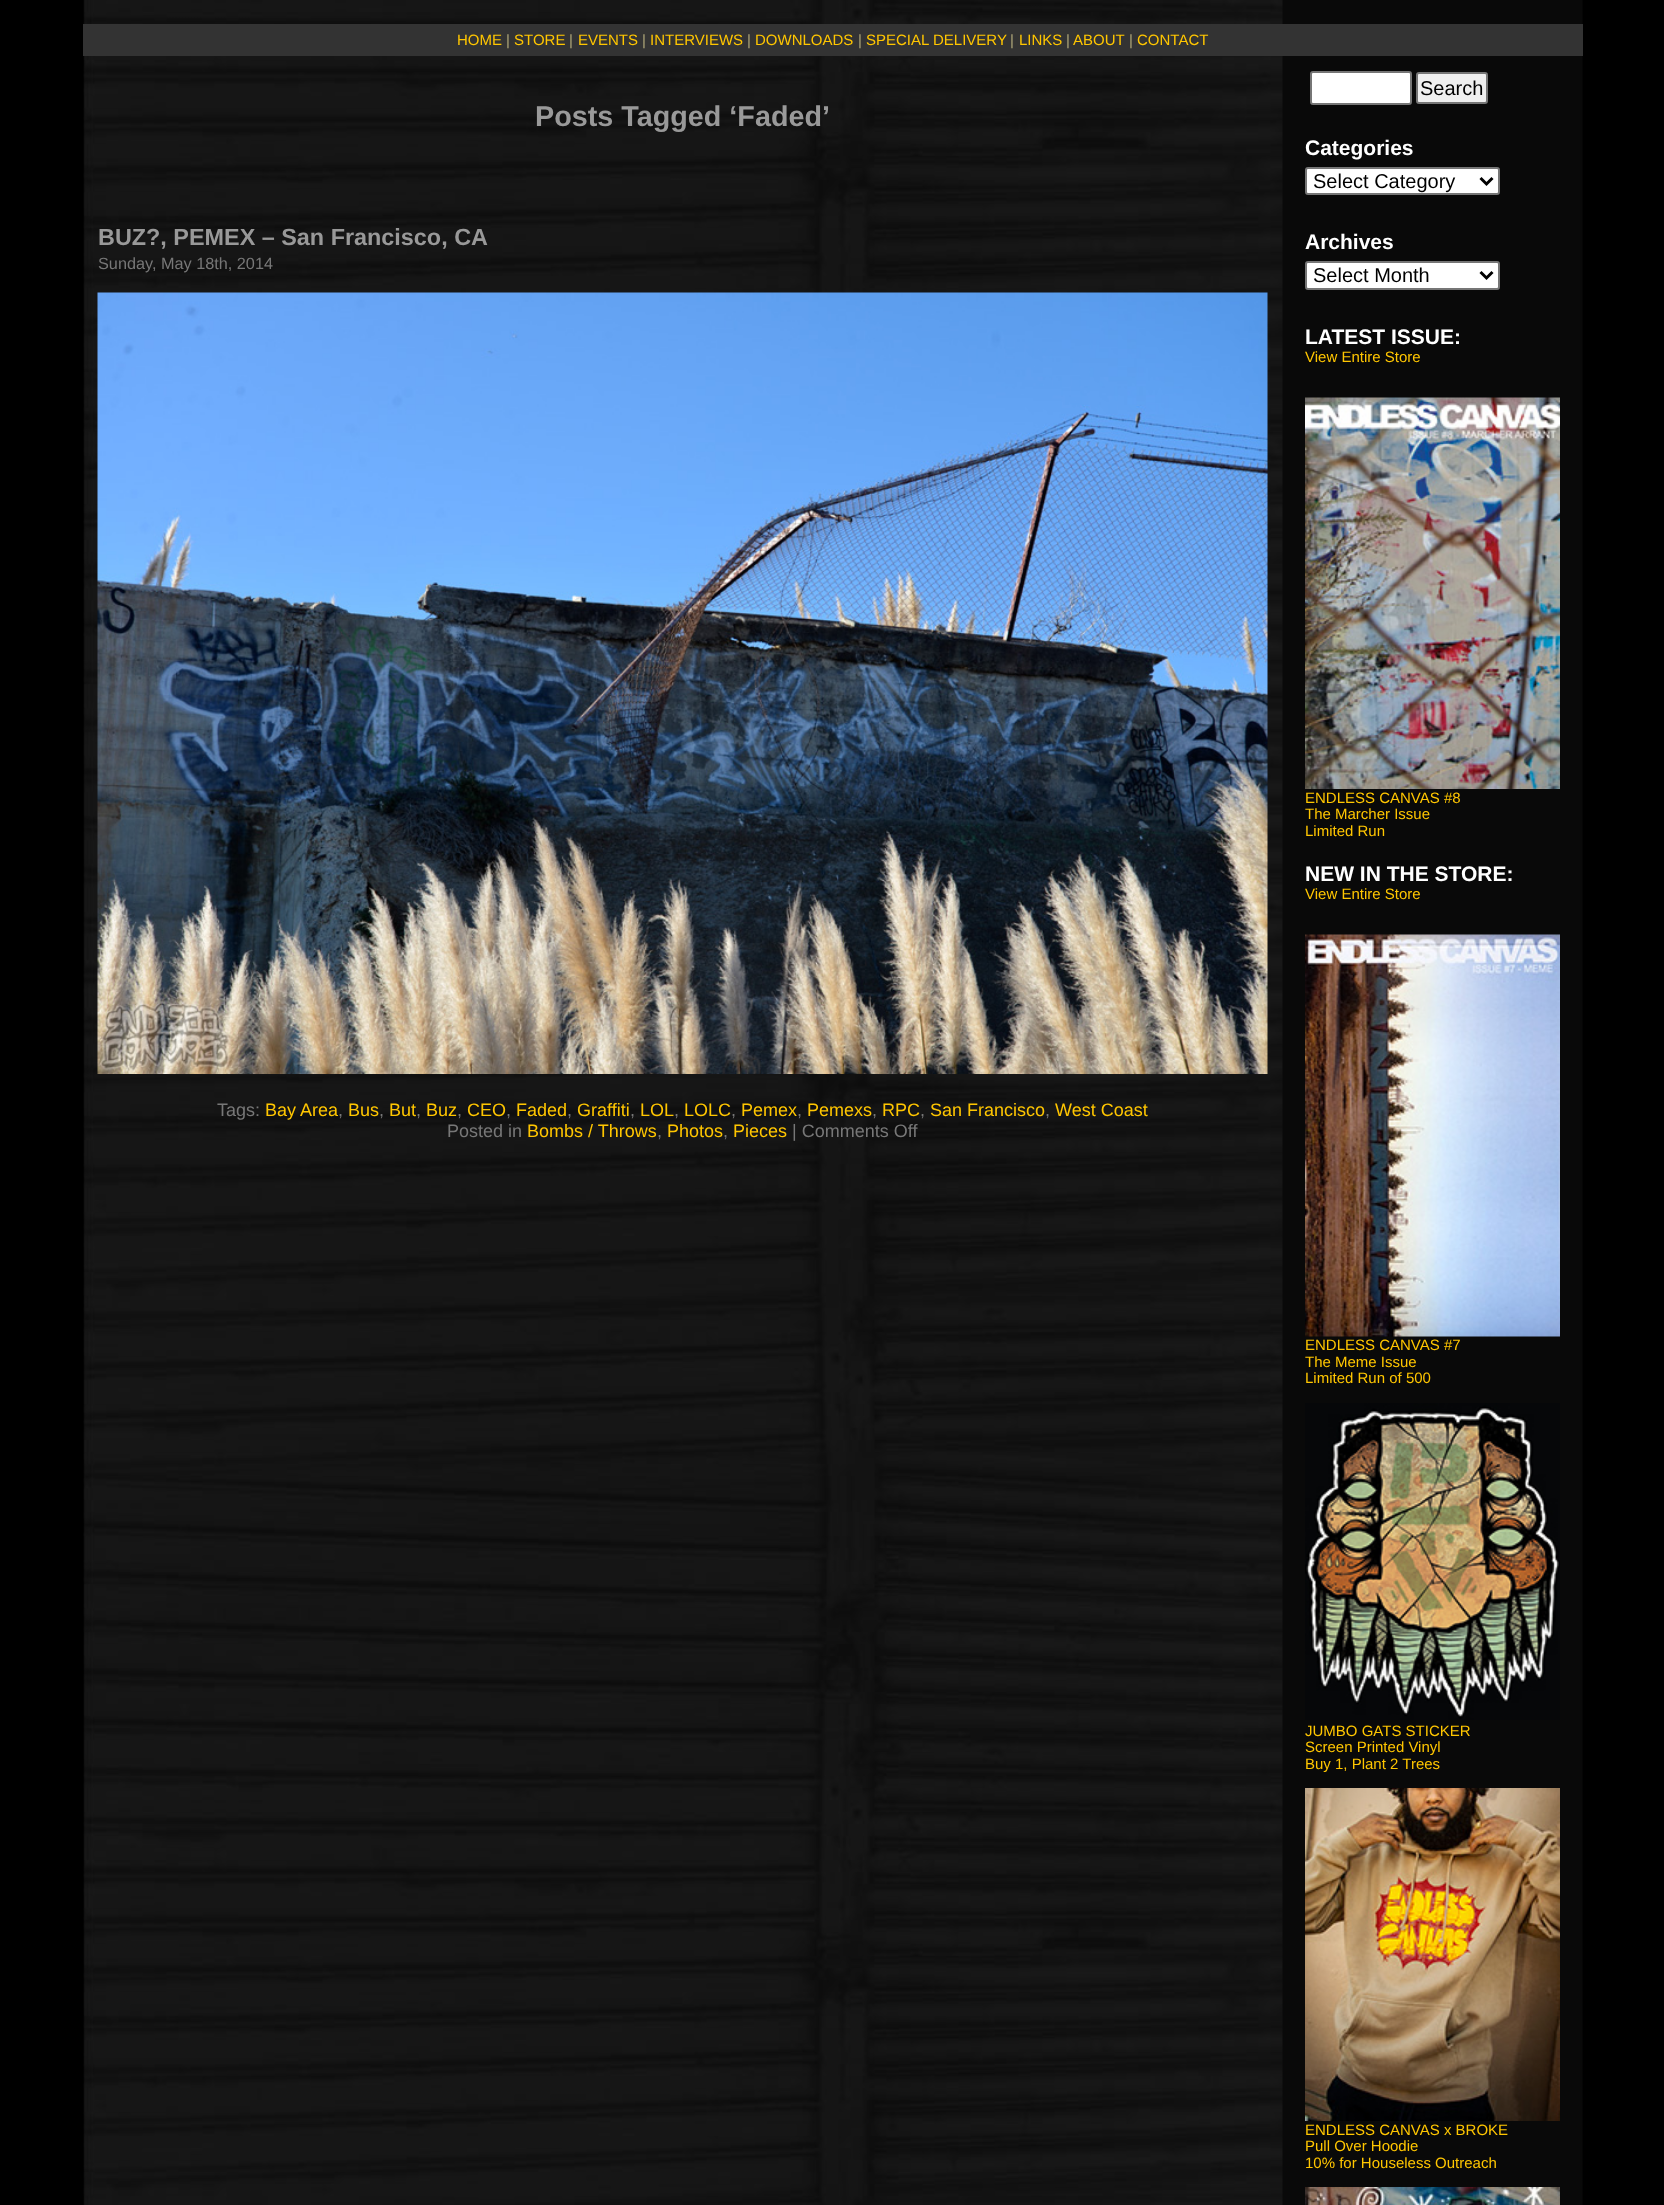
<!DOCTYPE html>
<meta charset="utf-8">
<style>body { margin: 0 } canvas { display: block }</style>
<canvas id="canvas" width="1664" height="2205"></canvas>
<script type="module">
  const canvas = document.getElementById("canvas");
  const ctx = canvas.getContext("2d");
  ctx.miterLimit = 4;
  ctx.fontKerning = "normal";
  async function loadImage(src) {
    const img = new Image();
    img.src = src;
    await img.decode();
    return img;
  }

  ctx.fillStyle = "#000000";
  ctx.fillRect(0, 0, 1664, 2205);
  ctx.drawImage(await loadImage("img1.png"), 83, 0, 1500, 2205);
  ctx.fillStyle = "#333333";
  ctx.fillRect(83, 24, 1500, 32);
  ctx.font = "15px Liberation Sans";
  ctx.fillStyle = "#ffc600";
  ctx.fillText("HOME", 457, 45);
  ctx.fillStyle = "#aea679";
  ctx.fillText("|", 506, 45);
  ctx.fillStyle = "#ffc600";
  ctx.fillText("STORE", 514, 45);
  ctx.fillStyle = "#aea679";
  ctx.fillText("|", 569, 45);
  ctx.fillStyle = "#ffc600";
  ctx.fillText("EVENTS", 578, 45);
  ctx.fillStyle = "#aea679";
  ctx.fillText("|", 642, 45);
  ctx.fillStyle = "#ffc600";
  ctx.fillText("INTERVIEWS", 650, 45);
  ctx.fillStyle = "#aea679";
  ctx.fillText("|", 747, 45);
  ctx.fillStyle = "#ffc600";
  ctx.fillText("DOWNLOADS", 755, 45);
  ctx.fillStyle = "#aea679";
  ctx.fillText("|", 858, 45);
  ctx.fillStyle = "#ffc600";
  ctx.fillText("SPECIAL DELIVERY", 866, 45);
  ctx.fillStyle = "#aea679";
  ctx.fillText("|", 1010, 45);
  ctx.fillStyle = "#ffc600";
  ctx.fillText("LINKS", 1019, 45);
  ctx.fillStyle = "#aea679";
  ctx.fillText("|", 1066, 45);
  ctx.fillStyle = "#ffc600";
  ctx.fillText("ABOUT", 1073, 45);
  ctx.fillStyle = "#aea679";
  ctx.fillText("|", 1129, 45);
  ctx.fillStyle = "#ffc600";
  ctx.fillText("CONTACT", 1137, 45);
  ctx.font = "bold 28.75px Liberation Sans";
  ctx.fillStyle = "#999999";
  ctx.fillText("Posts Tagged ‘Faded’", 535, 126);
  ctx.font = "bold 23.4px Liberation Sans";
  ctx.fillText("BUZ?, PEMEX – San Francisco, CA", 98, 245);
  ctx.font = "16.25px Liberation Sans";
  ctx.fillStyle = "#777777";
  ctx.fillText("Sunday, May 18th, 2014", 98, 269);
  ctx.drawImage(await loadImage("img2.png"), 97, 292, 1171, 782);
  ctx.font = "18px Liberation Sans";
  ctx.fillText("Tags:", 217, 1116);
  ctx.fillStyle = "#ffc600";
  ctx.fillText("Bay Area", 265, 1116);
  ctx.fillStyle = "#777777";
  ctx.fillText(",", 338, 1116);
  ctx.fillStyle = "#ffc600";
  ctx.fillText("Bus", 348, 1116);
  ctx.fillStyle = "#777777";
  ctx.fillText(",", 379, 1116);
  ctx.fillStyle = "#ffc600";
  ctx.fillText("But", 389, 1116);
  ctx.fillStyle = "#777777";
  ctx.fillText(",", 416, 1116);
  ctx.fillStyle = "#ffc600";
  ctx.fillText("Buz", 426, 1116);
  ctx.fillStyle = "#777777";
  ctx.fillText(",", 457, 1116);
  ctx.fillStyle = "#ffc600";
  ctx.fillText("CEO", 467, 1116);
  ctx.fillStyle = "#777777";
  ctx.fillText(",", 506, 1116);
  ctx.fillStyle = "#ffc600";
  ctx.fillText("Faded", 516, 1116);
  ctx.fillStyle = "#777777";
  ctx.fillText(",", 567, 1116);
  ctx.fillStyle = "#ffc600";
  ctx.fillText("Graffiti", 577, 1116);
  ctx.fillStyle = "#777777";
  ctx.fillText(",", 630, 1116);
  ctx.fillStyle = "#ffc600";
  ctx.fillText("LOL", 640, 1116);
  ctx.fillStyle = "#777777";
  ctx.fillText(",", 674, 1116);
  ctx.fillStyle = "#ffc600";
  ctx.fillText("LOLC", 684, 1116);
  ctx.fillStyle = "#777777";
  ctx.fillText(",", 731, 1116);
  ctx.fillStyle = "#ffc600";
  ctx.fillText("Pemex", 741, 1116);
  ctx.fillStyle = "#777777";
  ctx.fillText(",", 797, 1116);
  ctx.fillStyle = "#ffc600";
  ctx.fillText("Pemexs", 807, 1116);
  ctx.fillStyle = "#777777";
  ctx.fillText(",", 872, 1116);
  ctx.fillStyle = "#ffc600";
  ctx.fillText("RPC", 882, 1116);
  ctx.fillStyle = "#777777";
  ctx.fillText(",", 920, 1116);
  ctx.fillStyle = "#ffc600";
  ctx.fillText("San Francisco", 930, 1116);
  ctx.fillStyle = "#777777";
  ctx.fillText(",", 1045, 1116);
  ctx.fillStyle = "#ffc600";
  ctx.fillText("West Coast", 1055, 1116);
  ctx.fillStyle = "#777777";
  ctx.fillText("Posted in", 447, 1137);
  ctx.fillStyle = "#ffc600";
  ctx.fillText("Bombs / Throws", 527, 1137);
  ctx.fillStyle = "#777777";
  ctx.fillText(",", 657, 1137);
  ctx.fillStyle = "#ffc600";
  ctx.fillText("Photos", 667, 1137);
  ctx.fillStyle = "#777777";
  ctx.fillText(",", 723, 1137);
  ctx.fillStyle = "#ffc600";
  ctx.fillText("Pieces", 733, 1137);
  ctx.fillStyle = "#777777";
  ctx.fillText("| Comments Off", 792, 1137);
  ctx.fillStyle = "#ffffff";
  ctx.beginPath();
  ctx.roundRect(1311, 72, 100, 32, 2);
  ctx.fill();
  ctx.strokeStyle = "#767676";
  ctx.lineWidth = 2;
  ctx.stroke();
  ctx.fillStyle = "#efefef";
  ctx.beginPath();
  ctx.roundRect(1417, 73, 70, 30, 2);
  ctx.fill();
  ctx.stroke();
  ctx.font = "20px Liberation Sans";
  ctx.fillStyle = "#000000";
  ctx.fillText("Search", 1420, 95);
  ctx.font = "bold 21px Liberation Sans";
  ctx.fillStyle = "#ffffff";
  ctx.fillText("Categories", 1305, 155);
  ctx.beginPath();
  ctx.roundRect(1306, 168, 193, 26, 2);
  ctx.fill();
  ctx.stroke();
  ctx.beginPath();
  ctx.moveTo(1480.5, 178);
  ctx.lineTo(1486.5, 184);
  ctx.lineTo(1492.5, 178);
  ctx.strokeStyle = "#000000";
  ctx.lineWidth = 3;
  ctx.stroke();
  ctx.font = "20px Liberation Sans";
  ctx.fillStyle = "#000000";
  ctx.fillText("Select Category", 1313, 188);
  ctx.font = "bold 21px Liberation Sans";
  ctx.fillStyle = "#ffffff";
  ctx.fillText("Archives", 1305, 249);
  ctx.beginPath();
  ctx.roundRect(1306, 262, 193, 27, 2);
  ctx.fill();
  ctx.strokeStyle = "#767676";
  ctx.lineWidth = 2;
  ctx.stroke();
  ctx.beginPath();
  ctx.moveTo(1480.5, 272);
  ctx.lineTo(1486.5, 278);
  ctx.lineTo(1492.5, 272);
  ctx.strokeStyle = "#000000";
  ctx.lineWidth = 3;
  ctx.stroke();
  ctx.font = "20px Liberation Sans";
  ctx.fillStyle = "#000000";
  ctx.fillText("Select Month", 1313, 282);
  ctx.font = "bold 21px Liberation Sans";
  ctx.fillStyle = "#ffffff";
  ctx.fillText("LATEST ISSUE:", 1305, 344);
  ctx.font = "15px Liberation Sans";
  ctx.fillStyle = "#ffc600";
  ctx.fillText("View Entire Store", 1305, 362);
  ctx.drawImage(await loadImage("img3.png"), 1305, 397, 255, 392);
  ctx.fillText("ENDLESS CANVAS #8", 1305, 803);
  ctx.fillText("The Marcher Issue", 1305, 819);
  ctx.fillText("Limited Run", 1305, 836);
  ctx.font = "bold 21px Liberation Sans";
  ctx.fillStyle = "#ffffff";
  ctx.fillText("NEW IN THE STORE:", 1305, 881);
  ctx.font = "15px Liberation Sans";
  ctx.fillStyle = "#ffc600";
  ctx.fillText("View Entire Store", 1305, 899);
  ctx.drawImage(await loadImage("img4.png"), 1305, 934, 255, 403);
  ctx.fillText("ENDLESS CANVAS #7", 1305, 1350);
  ctx.fillText("The Meme Issue", 1305, 1367);
  ctx.fillText("Limited Run of 500", 1305, 1383);
  ctx.drawImage(await loadImage("img5.png"), 1305, 1403, 255, 317);
  ctx.fillText("JUMBO GATS STICKER", 1305, 1736);
  ctx.fillText("Screen Printed Vinyl", 1305, 1752);
  ctx.fillText("Buy 1, Plant 2 Trees", 1305, 1769);
  ctx.drawImage(await loadImage("img6.png"), 1305, 1788, 255, 333);
  ctx.fillText("ENDLESS CANVAS x BROKE", 1305, 2135);
  ctx.fillText("Pull Over Hoodie", 1305, 2151);
  ctx.fillText("10% for Houseless Outreach", 1305, 2168);
  ctx.drawImage(await loadImage("img7.png"), 1305, 2187, 255, 18);
</script>
